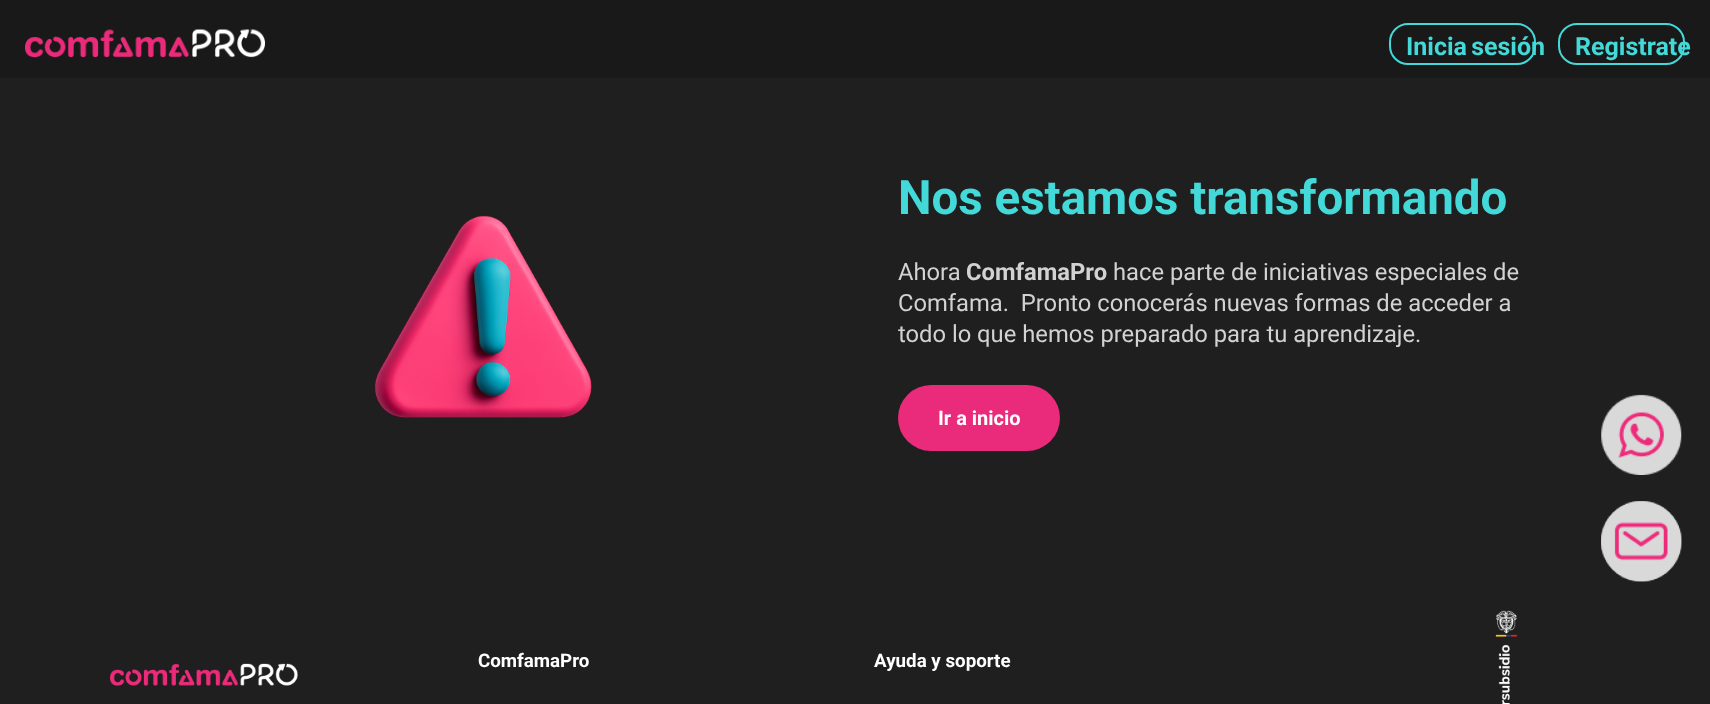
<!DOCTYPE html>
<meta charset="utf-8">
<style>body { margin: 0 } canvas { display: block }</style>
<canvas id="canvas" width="1710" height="704"></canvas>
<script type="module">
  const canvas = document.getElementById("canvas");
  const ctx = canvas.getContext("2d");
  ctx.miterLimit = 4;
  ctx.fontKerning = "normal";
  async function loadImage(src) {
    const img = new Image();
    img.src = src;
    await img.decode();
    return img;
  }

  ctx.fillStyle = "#191919";
  ctx.fillRect(0, 0, 1710, 704);
  ctx.drawImage(await loadImage("img1.png"), 25, 29, 240, 29);
  ctx.beginPath();
  ctx.roundRect(1390, 24, 145, 40, 18);
  ctx.strokeStyle = "#43d9d9";
  ctx.lineWidth = 2;
  ctx.stroke();
  ctx.wordSpacing = "-2px";
  ctx.font = "bold 25px Roboto";
  ctx.fillStyle = "#43d9d9";
  ctx.fillText("Inicia sesión", 1406, 55);
  ctx.beginPath();
  ctx.roundRect(1559, 24, 125, 40, 18);
  ctx.stroke();
  ctx.wordSpacing = "0px";
  ctx.fillText("Registrate", 1575, 55);
  ctx.fillStyle = "#1f1f1f";
  ctx.fillRect(0, 78, 1710, 626);
  ctx.drawImage(await loadImage("img2.png"), 374, 215, 218, 203);
  ctx.font = "bold 47.5px Roboto";
  ctx.fillStyle = "#43d9d9";
  ctx.fillText("Nos estamos transformando", 898, 214);
  ctx.font = "23.75px Roboto";
  ctx.fillStyle = "#d2d2d2";
  ctx.fillText("Ahora", 898, 280);
  ctx.font = "bold 23.75px Roboto";
  ctx.fillText("ComfamaPro", 966, 280);
  ctx.font = "23.75px Roboto";
  ctx.fillText("hace parte de iniciativas especiales de", 1113, 280);
  ctx.fillText("Comfama.  Pronto conocerás nuevas formas de acceder a", 898, 311);
  ctx.fillText("todo lo que hemos preparado para tu aprendizaje.", 898, 342);
  ctx.fillStyle = "#ea2b7b";
  ctx.beginPath();
  ctx.roundRect(898, 385, 162, 66, 33);
  ctx.fill();
  ctx.font = "bold 20px Roboto";
  ctx.fillStyle = "#ffffff";
  ctx.fillText("Ir a inicio", 938, 425);
  ctx.drawImage(await loadImage("img3.png"), 110, 663, 188, 23);
  ctx.font = "bold 18.75px Roboto";
  ctx.fillText("ComfamaPro", 478, 667);
  ctx.fillText("Ayuda y soporte", 874, 667);
  ctx.drawImage(await loadImage("img4.png"), 1495, 610, 22, 94);
  ctx.drawImage(await loadImage("img5.png"), 1601, 394, 81, 81);
  ctx.drawImage(await loadImage("img6.png"), 1601, 501, 81, 81);
  ctx.drawImage(await loadImage("img7.png"), 1601, 501, 81, 81);
</script>
